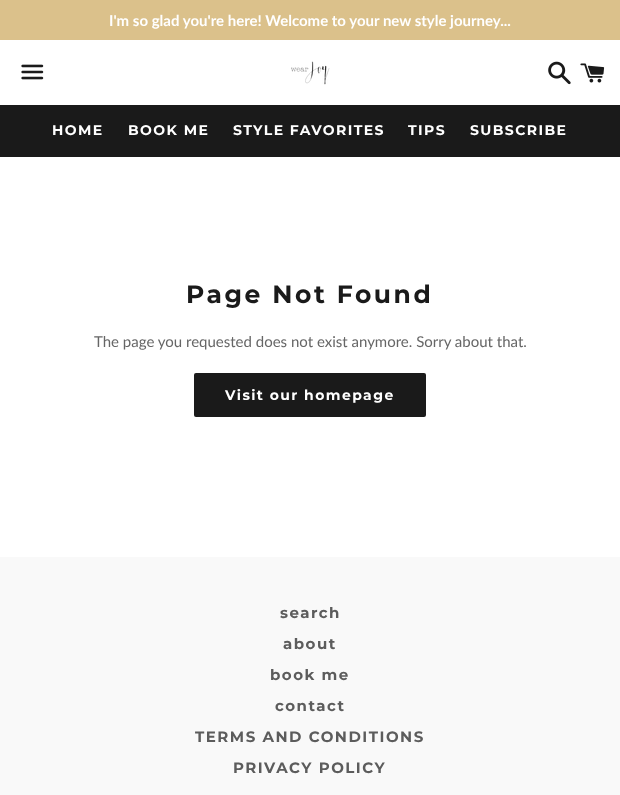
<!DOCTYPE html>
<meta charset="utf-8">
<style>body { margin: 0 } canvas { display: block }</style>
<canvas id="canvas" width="620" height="795"></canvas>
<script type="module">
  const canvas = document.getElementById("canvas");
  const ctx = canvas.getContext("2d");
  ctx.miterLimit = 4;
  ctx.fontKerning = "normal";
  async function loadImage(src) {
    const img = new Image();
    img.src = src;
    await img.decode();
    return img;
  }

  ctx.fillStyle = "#ffffff";
  ctx.fillRect(0, 0, 620, 795);
  ctx.fillStyle = "#dbc18b";
  ctx.fillRect(0, 0, 620, 40);
  ctx.font = "bold 15px Lato";
  ctx.fillStyle = "#ffffff";
  ctx.fillText("I'm so glad you're here! Welcome to your new style journey...", 109, 26);
  ctx.drawImage(await loadImage("img1.png"), 21, 64, 23, 16);
  ctx.drawImage(await loadImage("img2.png"), 291, 61, 39, 24);
  ctx.drawImage(await loadImage("img3.png"), 548, 61, 23, 24);
  ctx.drawImage(await loadImage("img4.png"), 580, 63, 25, 20);
  ctx.fillStyle = "#1a1a1a";
  ctx.fillRect(0, 105, 620, 52);
  ctx.letterSpacing = "1.4px";
  ctx.font = "bold 14px Montserrat";
  ctx.fillStyle = "#ffffff";
  ctx.fillText("HOME", 52, 135);
  ctx.fillText("BOOK ME", 128, 135);
  ctx.fillText("STYLE FAVORITES", 233, 135);
  ctx.fillText("TIPS", 408, 135);
  ctx.fillText("SUBSCRIBE", 470, 135);
  ctx.letterSpacing = "2.5px";
  ctx.font = "bold 25px Montserrat";
  ctx.fillStyle = "#1a1a1a";
  ctx.fillText("Page Not Found", 186, 303);
  ctx.letterSpacing = "0px";
  ctx.font = "15px Lato";
  ctx.fillStyle = "#666666";
  ctx.fillText("The page you requested does not exist anymore. Sorry about that.", 94, 347);
  ctx.fillStyle = "#1a1a1a";
  ctx.beginPath();
  ctx.roundRect(194, 373, 232, 44, 2);
  ctx.fill();
  ctx.letterSpacing = "1.4px";
  ctx.font = "bold 14px Montserrat";
  ctx.fillStyle = "#ffffff";
  ctx.fillText("Visit our homepage", 225, 400);
  ctx.fillStyle = "#f9f9f9";
  ctx.fillRect(0, 557, 620, 238);
  ctx.letterSpacing = "1.5px";
  ctx.font = "bold 15px Montserrat";
  ctx.fillStyle = "#5c5c5c";
  ctx.fillText("search", 280, 618);
  ctx.fillText("about", 283, 649);
  ctx.fillText("book me", 270, 680);
  ctx.fillText("contact", 275, 711);
  ctx.fillText("TERMS AND CONDITIONS", 195, 742);
  ctx.fillText("PRIVACY POLICY", 233, 773);
</script>
